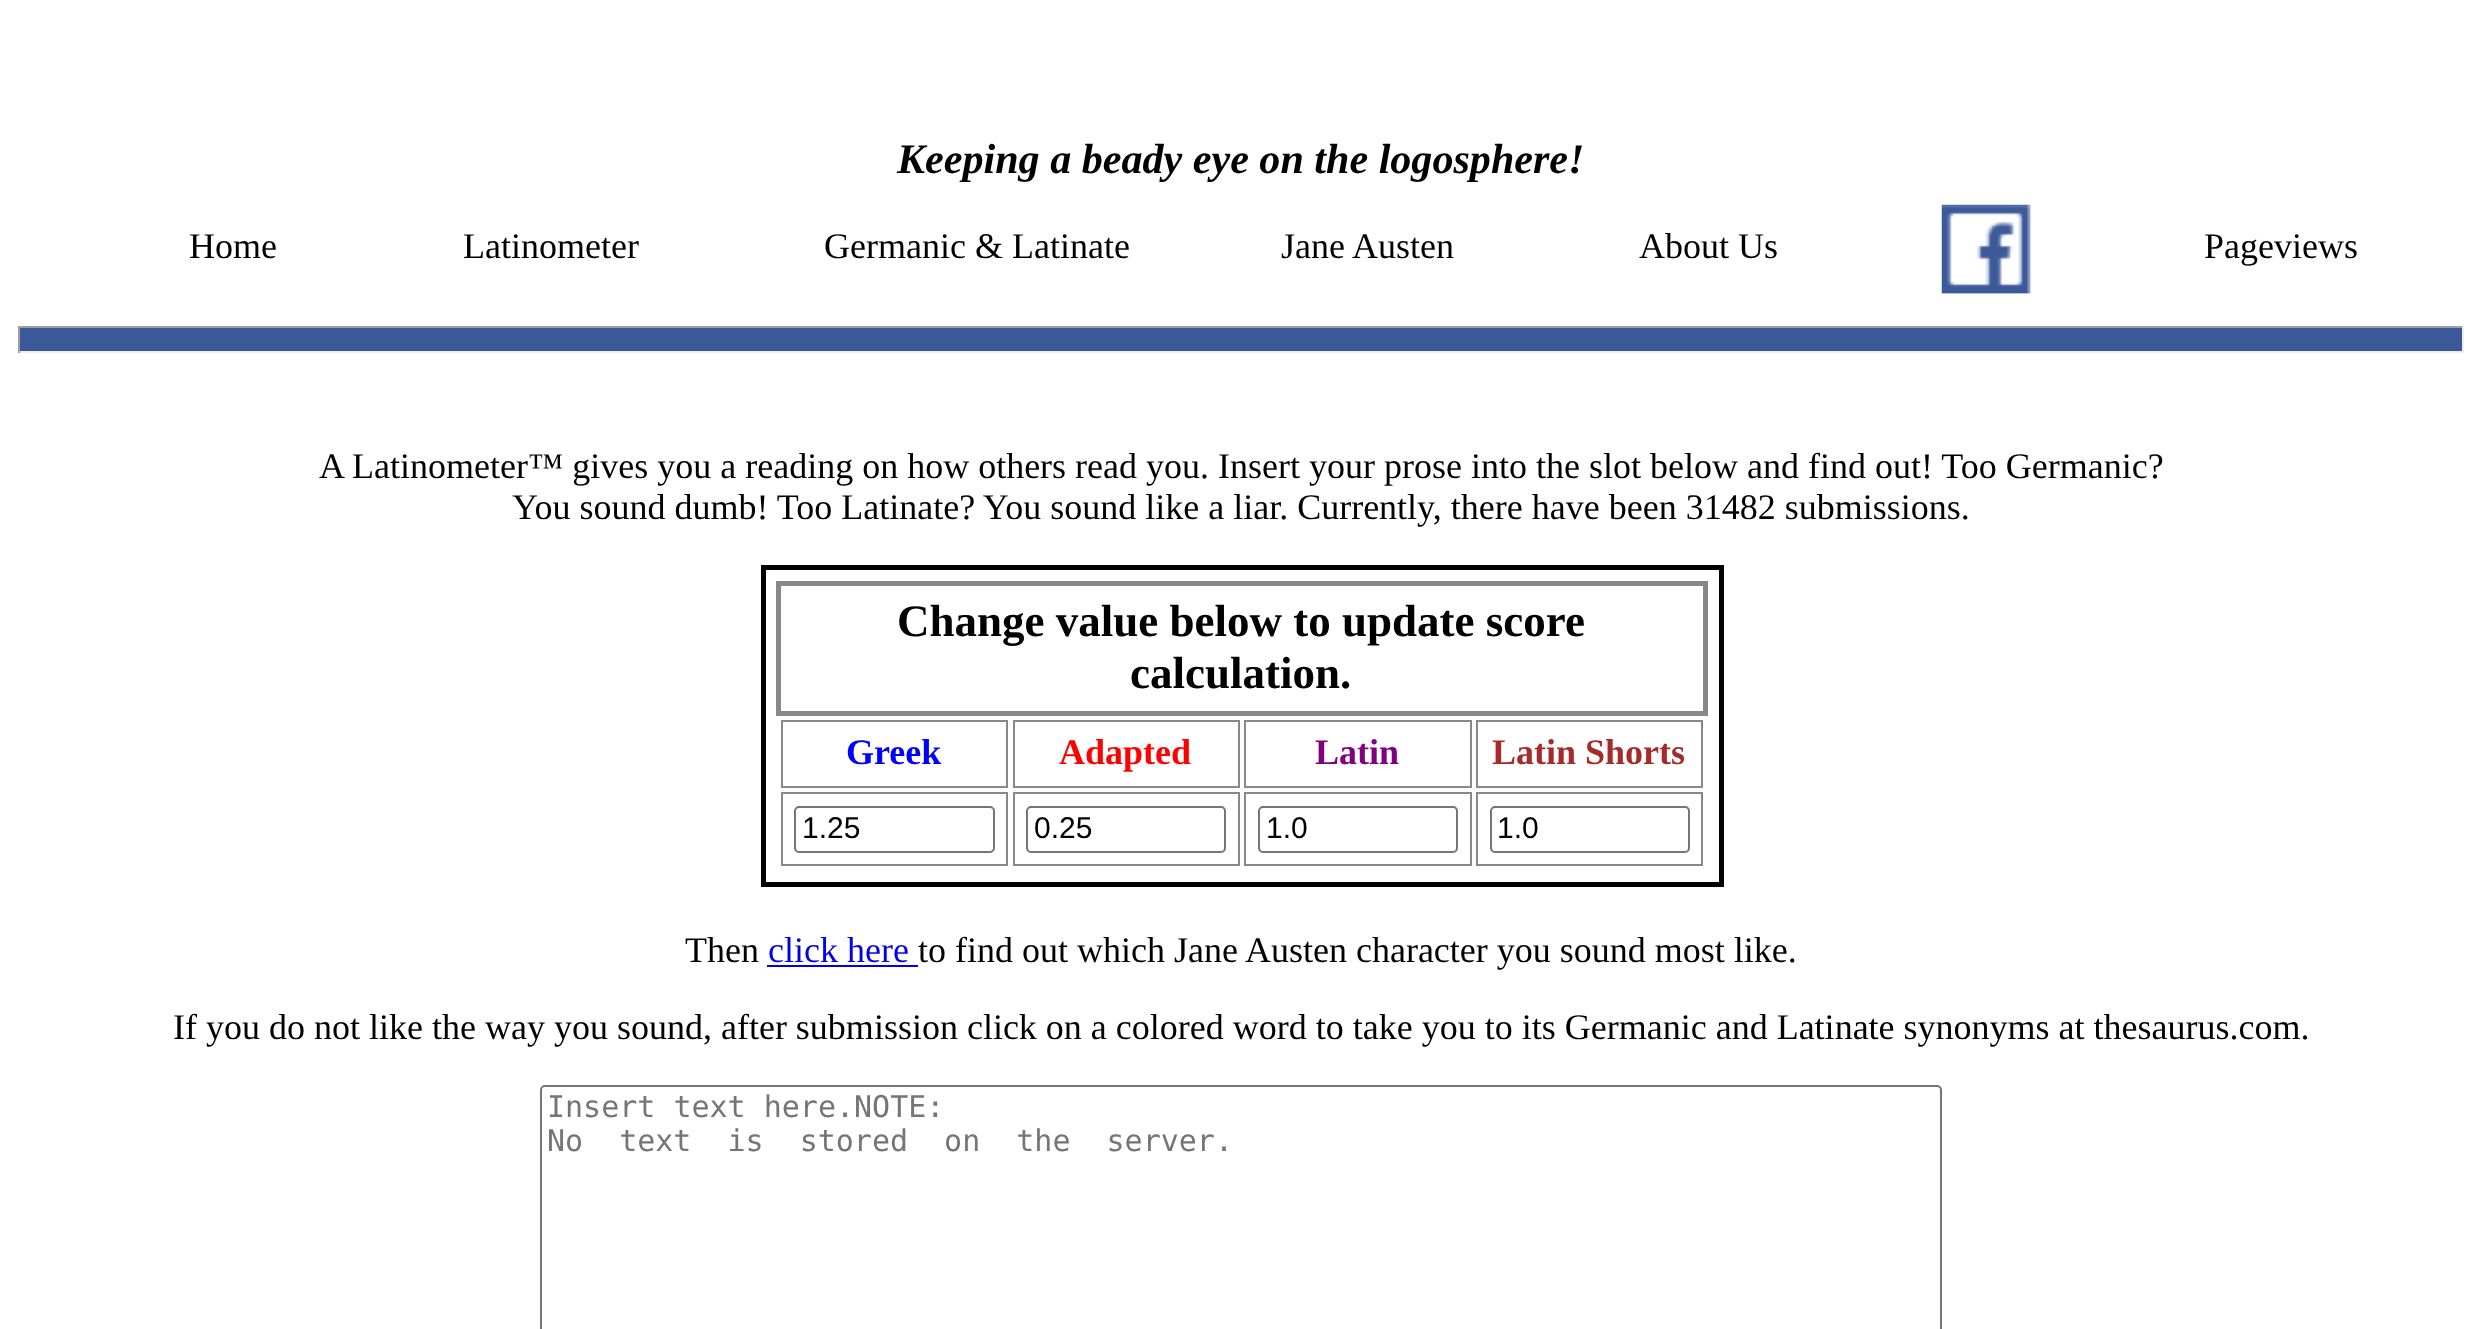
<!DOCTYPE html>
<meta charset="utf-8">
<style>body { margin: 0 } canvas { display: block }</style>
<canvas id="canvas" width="2480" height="1329"></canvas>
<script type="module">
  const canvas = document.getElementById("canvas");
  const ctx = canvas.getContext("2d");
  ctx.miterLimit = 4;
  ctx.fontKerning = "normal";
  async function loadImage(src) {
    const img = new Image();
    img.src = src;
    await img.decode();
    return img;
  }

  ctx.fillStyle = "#ffffff";
  ctx.fillRect(0, 0, 2480, 1329);
  ctx.font = "italic bold 42.1px Liberation Serif";
  ctx.fillStyle = "#000000";
  ctx.fillText("Keeping a beady eye on the logosphere!", 897, 173);
  ctx.font = "36px Liberation Serif";
  ctx.fillText("Home", 189, 258);
  ctx.fillText("Latinometer", 463, 258);
  ctx.fillText("Germanic & Latinate", 824, 258);
  ctx.fillText("Jane Austen", 1281, 258);
  ctx.fillText("About Us", 1639, 258);
  ctx.drawImage(await loadImage("img1.png"), 1941, 204, 90, 90);
  ctx.fillText("Pageviews", 2204, 258);
  ctx.fillStyle = "#3b5998";
  ctx.fillRect(20, 328, 2442, 23);
  ctx.fillStyle = "#9f9f9f";
  ctx.fillRect(18, 326, 2446, 2);
  ctx.fillStyle = "#eeeeee";
  ctx.fillRect(2462, 326, 2, 27);
  ctx.fillRect(18, 351, 2446, 2);
  ctx.fillStyle = "#9f9f9f";
  ctx.fillRect(18, 326, 2, 27);
  ctx.fillStyle = "#000000";
  ctx.fillText("A Latinometer™ gives you a reading on how others read you. Insert your prose into the slot below and find out! Too Germanic?", 319, 478);
  ctx.fillText("You sound dumb! Too Latinate? You sound like a liar. Currently, there have been 31482 submissions.", 512, 519);
  ctx.strokeStyle = "#000000";
  ctx.lineWidth = 5;
  ctx.strokeRect(763.5, 567.5, 958, 317);
  ctx.strokeStyle = "#888888";
  ctx.strokeRect(778.5, 583.5, 927, 130);
  ctx.font = "bold 45px Liberation Serif";
  ctx.fillText("Change value below to update score", 897, 636);
  ctx.fillText("calculation.", 1130, 688);
  ctx.lineWidth = 2;
  ctx.strokeRect(782, 721, 225, 66);
  ctx.font = "bold 36px Liberation Serif";
  ctx.fillStyle = "#0000ff";
  ctx.fillText("Greek", 846, 764);
  ctx.strokeRect(1014, 721, 225, 66);
  ctx.fillStyle = "#ff0000";
  ctx.fillText("Adapted", 1059, 764);
  ctx.strokeRect(1245, 721, 226, 66);
  ctx.fillStyle = "#800080";
  ctx.fillText("Latin", 1315, 764);
  ctx.strokeRect(1477, 721, 225, 66);
  ctx.fillStyle = "#a52a2a";
  ctx.fillText("Latin Shorts", 1492, 764);
  ctx.strokeRect(782, 793, 225, 72);
  ctx.beginPath();
  ctx.roundRect(795, 807, 199, 45, 4);
  ctx.strokeStyle = "#767676";
  ctx.stroke();
  ctx.font = "30px Liberation Sans";
  ctx.fillStyle = "#000000";
  ctx.fillText("1.25", 802, 838);
  ctx.strokeStyle = "#888888";
  ctx.strokeRect(1014, 793, 225, 72);
  ctx.beginPath();
  ctx.roundRect(1027, 807, 198, 45, 4);
  ctx.strokeStyle = "#767676";
  ctx.stroke();
  ctx.fillText("0.25", 1034, 838);
  ctx.strokeStyle = "#888888";
  ctx.strokeRect(1245, 793, 226, 72);
  ctx.beginPath();
  ctx.roundRect(1259, 807, 198, 45, 4);
  ctx.strokeStyle = "#767676";
  ctx.stroke();
  ctx.fillText("1.0", 1266, 838);
  ctx.strokeStyle = "#888888";
  ctx.strokeRect(1477, 793, 225, 72);
  ctx.beginPath();
  ctx.roundRect(1491, 807, 198, 45, 4);
  ctx.strokeStyle = "#767676";
  ctx.stroke();
  ctx.fillText("1.0", 1497, 838);
  ctx.font = "36px Liberation Serif";
  ctx.fillText("Then", 685, 962);
  ctx.fillStyle = "#0000ee";
  ctx.fillText("click here", 768, 962);
  ctx.fillRect(767, 965, 151, 2);
  ctx.fillStyle = "#000000";
  ctx.fillText("to find out which Jane Austen character you sound most like.", 918, 962);
  ctx.fillText("If you do not like the way you sound, after submission click on a colored word to take you to its Germanic and Latinate synonyms at thesaurus.com.", 173, 1039);
  ctx.beginPath();
  ctx.roundRect(541, 1086, 1400, 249, 4);
  ctx.stroke();
  ctx.font = "30px DejaVu Sans Mono";
  ctx.fillStyle = "#757575";
  ctx.fillText("Insert text here.NOTE:", 547, 1117);
  ctx.wordSpacing = "18px";
  ctx.fillText("No text is stored on the server.", 547, 1151);
</script>
